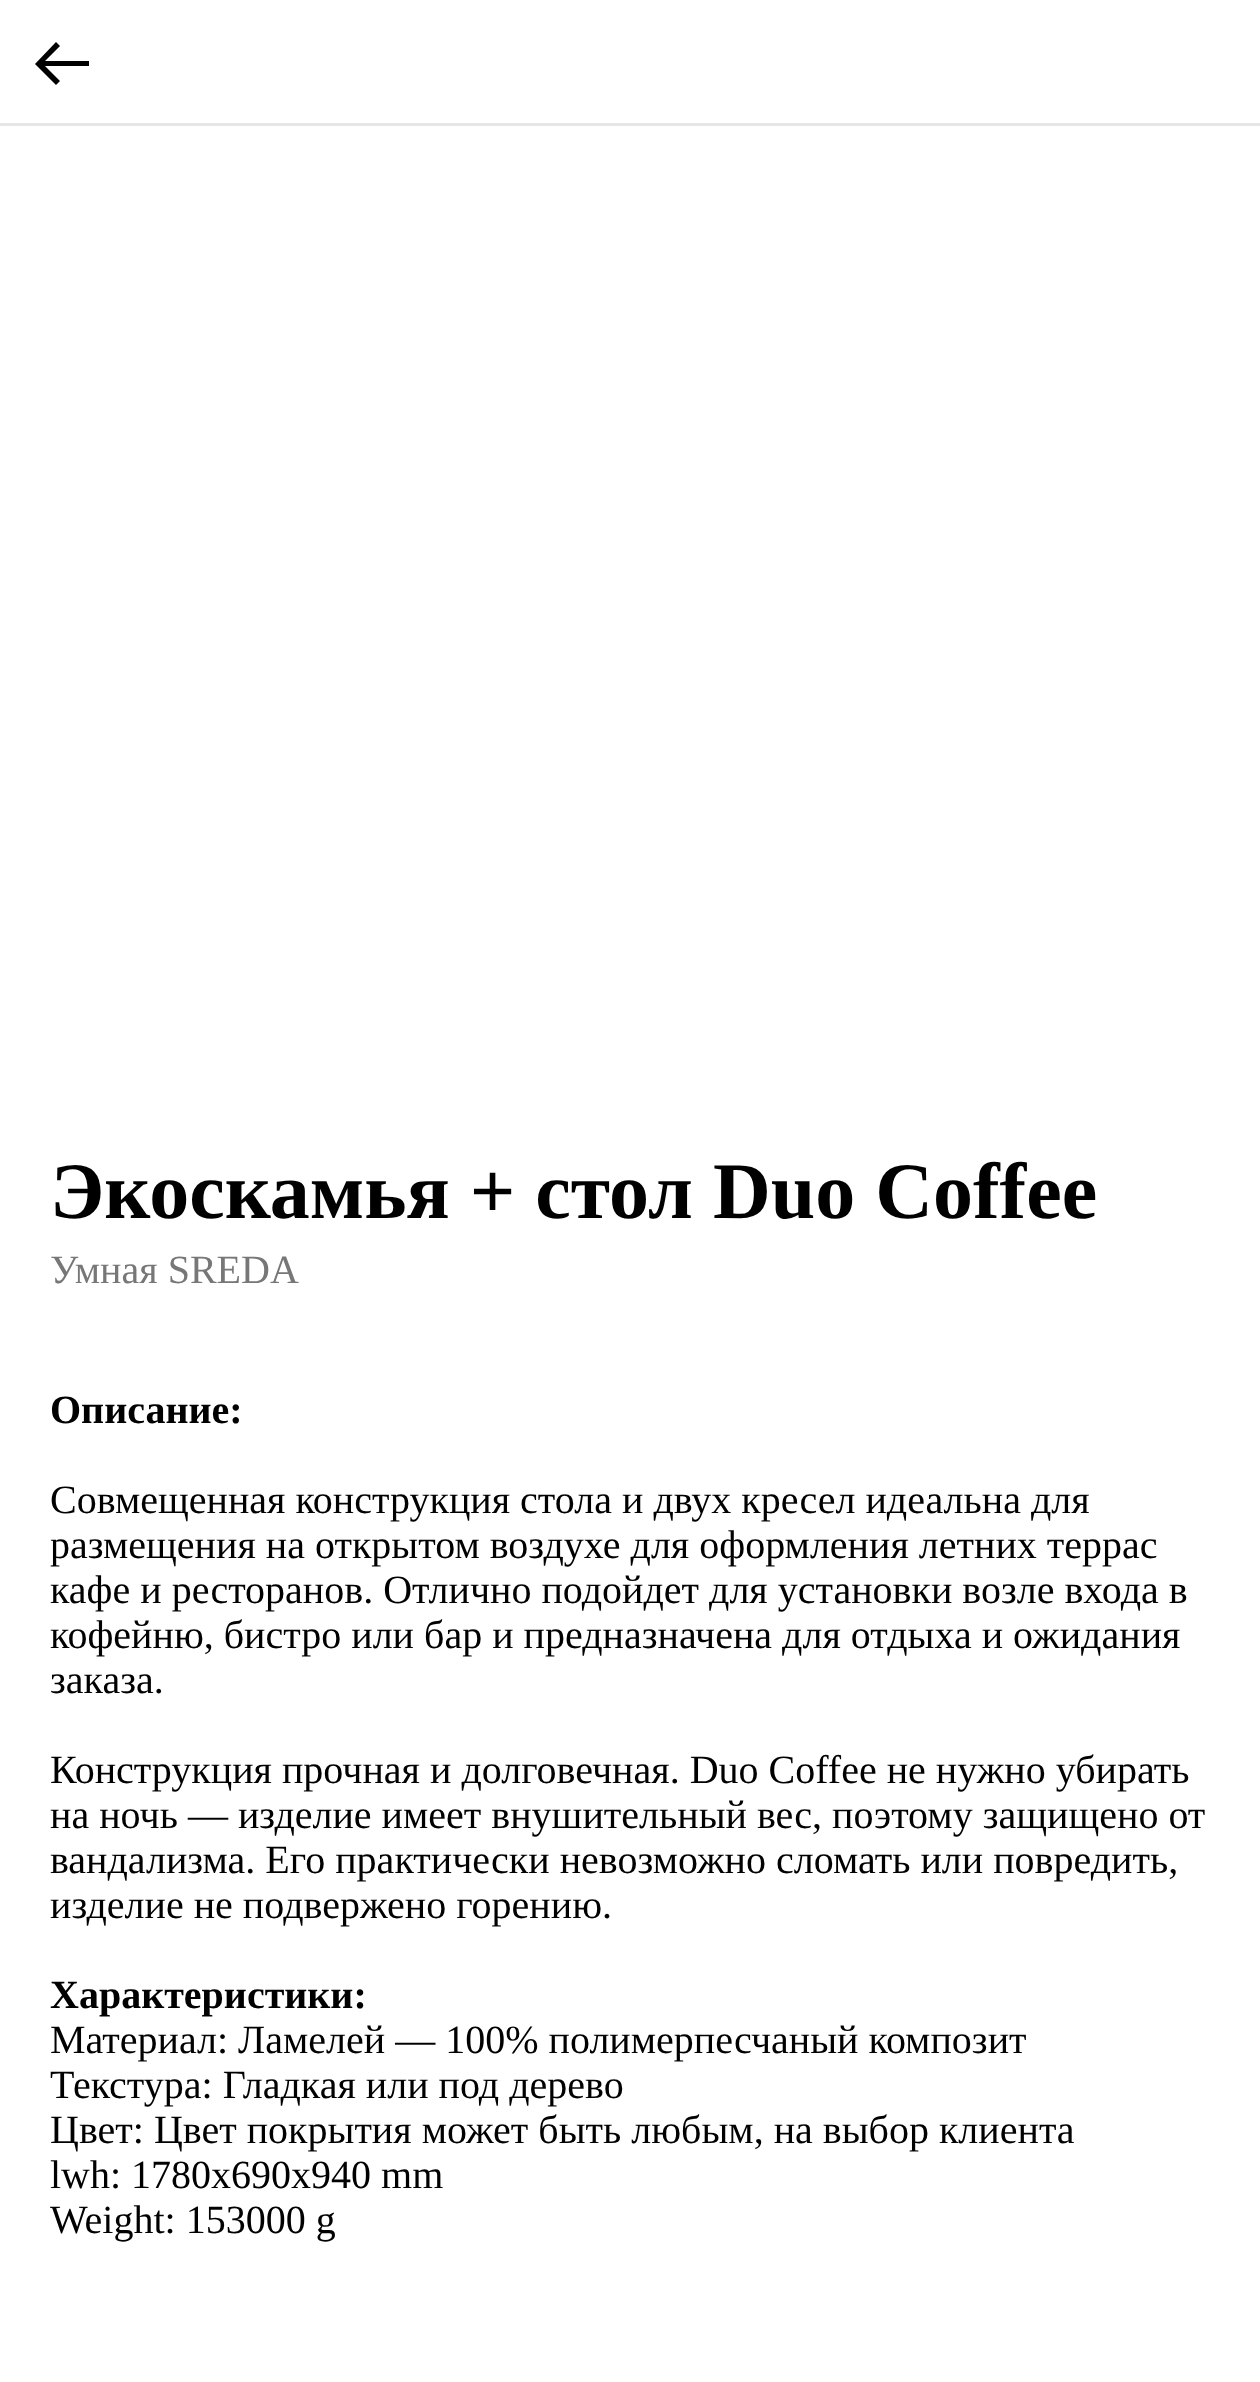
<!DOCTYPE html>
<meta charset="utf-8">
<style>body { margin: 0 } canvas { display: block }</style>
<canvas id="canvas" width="1260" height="2382"></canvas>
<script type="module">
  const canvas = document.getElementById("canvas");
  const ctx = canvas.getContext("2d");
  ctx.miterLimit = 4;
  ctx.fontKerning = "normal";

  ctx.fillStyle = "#ffffff";
  ctx.fillRect(0, 0, 1260, 2382);
  ctx.fillStyle = "#e6e6e6";
  ctx.fillRect(0, 123, 1260, 3);
  ctx.fillStyle = "#000000";
  ctx.beginPath();
  ctx.moveTo(56, 42);
  ctx.lineTo(60, 46);
  ctx.lineTo(45, 61);
  ctx.lineTo(89, 61);
  ctx.lineTo(89, 66);
  ctx.lineTo(45, 66);
  ctx.lineTo(60, 81);
  ctx.lineTo(56, 85);
  ctx.lineTo(35, 64);
  ctx.closePath();
  ctx.fill();
  ctx.font = "bold 80px Liberation Serif";
  ctx.fillText("Экоскамья + стол Duo Coffee", 50, 1218);
  ctx.font = "40px Liberation Serif";
  ctx.fillStyle = "#777777";
  ctx.fillText("Умная SREDA", 50, 1283);
  ctx.font = "bold 40px Liberation Serif";
  ctx.fillStyle = "#000000";
  ctx.fillText("Описание:", 50, 1423);
  ctx.font = "40px Liberation Serif";
  ctx.fillText("Совмещенная конструкция стола и двух кресел идеальна для", 50, 1513);
  ctx.fillText("размещения на открытом воздухе для оформления летних террас", 50, 1558);
  ctx.fillText("кафе и ресторанов. Отлично подойдет для установки возле входа в", 50, 1603);
  ctx.fillText("кофейню, бистро или бар и предназначена для отдыха и ожидания", 50, 1648);
  ctx.fillText("заказа.", 50, 1693);
  ctx.fillText("Конструкция прочная и долговечная. Duo Coffee не нужно убирать", 50, 1783);
  ctx.fillText("на ночь — изделие имеет внушительный вес, поэтому защищено от", 50, 1828);
  ctx.fillText("вандализма. Его практически невозможно сломать или повредить,", 50, 1873);
  ctx.fillText("изделие не подвержено горению.", 50, 1918);
  ctx.font = "bold 40px Liberation Serif";
  ctx.fillText("Характеристики:", 50, 2008);
  ctx.font = "40px Liberation Serif";
  ctx.fillText("Материал: Ламелей — 100% полимерпесчаный композит", 50, 2053);
  ctx.fillText("Текстура: Гладкая или под дерево", 50, 2098);
  ctx.fillText("Цвет: Цвет покрытия может быть любым, на выбор клиента", 50, 2143);
  ctx.fillText("lwh: 1780x690x940 mm", 50, 2188);
  ctx.fillText("Weight: 153000 g", 50, 2233);
</script>
